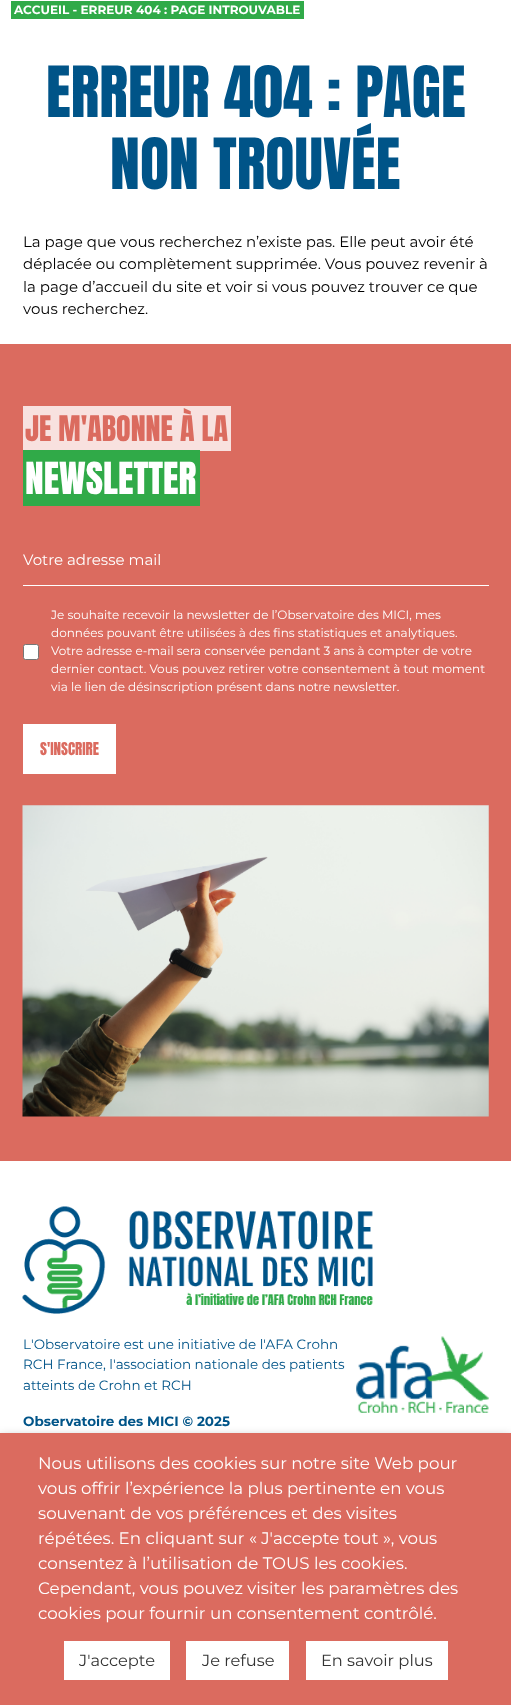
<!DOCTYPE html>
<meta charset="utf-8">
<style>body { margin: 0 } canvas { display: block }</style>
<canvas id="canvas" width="511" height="1705"></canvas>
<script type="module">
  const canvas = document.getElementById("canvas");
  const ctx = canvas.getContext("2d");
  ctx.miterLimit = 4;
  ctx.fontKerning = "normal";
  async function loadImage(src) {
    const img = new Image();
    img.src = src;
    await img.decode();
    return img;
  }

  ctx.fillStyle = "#ffffff";
  ctx.fillRect(0, 0, 511, 1705);
  ctx.fillStyle = "#30aa48";
  ctx.fillRect(11, 1, 293, 18);
  ctx.font = "100 12px Montserrat";
  ctx.fillStyle = "#ffffff";
  ctx.fillText("ACCUEIL - ERREUR 404 : PAGE INTROUVABLE", 14, 14);
  ctx.font = "60px Anton";
  ctx.fillStyle = "#005488";
  ctx.fillText("ERREUR 404 : PAGE", 46, 117);
  ctx.fillText("NON TROUVÉE", 110, 189);
  ctx.font = "100 15px 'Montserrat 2'";
  ctx.fillStyle = "#000000";
  ctx.fillText("La page que vous recherchez n’existe pas. Elle peut avoir été", 23, 247);
  ctx.fillText("déplacée ou complètement supprimée. Vous pouvez revenir à", 23, 269);
  ctx.fillText("la page d’accueil du site et voir si vous pouvez trouver ce que", 23, 292);
  ctx.fillText("vous recherchez.", 23, 314);
  ctx.fillStyle = "#db6b5f";
  ctx.fillRect(0, 344, 511, 817);
  ctx.fillStyle = "#f8e1df";
  ctx.fillRect(23, 406, 208, 45);
  ctx.font = "30px Anton";
  ctx.fillStyle = "#db6b5f";
  ctx.fillText("JE M'ABONNE À LA", 25, 441);
  ctx.fillStyle = "#30aa48";
  ctx.fillRect(23, 450, 177, 56);
  ctx.font = "37.5px Anton";
  ctx.fillStyle = "#ffffff";
  ctx.fillText("NEWSLETTER", 25, 494);
  ctx.fillRect(23, 585, 466, 1);
  ctx.font = "100 15px 'Montserrat 2'";
  ctx.fillText("Votre adresse mail", 23, 565);
  ctx.beginPath();
  ctx.roundRect(23.5, 644.5, 15, 15, 2);
  ctx.fill();
  ctx.strokeStyle = "#767676";
  ctx.stroke();
  ctx.font = "100 12px 'Montserrat 2'";
  ctx.fillText("Je souhaite recevoir la newsletter de l’Observatoire des MICI, mes", 51, 619);
  ctx.fillText("données pouvant être utilisées à des fins statistiques et analytiques.", 51, 637);
  ctx.fillText("Votre adresse e-mail sera conservée pendant 3 ans à compter de votre", 51, 655);
  ctx.fillText("dernier contact. Vous pouvez retirer votre consentement à tout moment", 51, 673);
  ctx.fillText("via le lien de désinscription présent dans notre newsletter.", 51, 691);
  ctx.fillRect(23, 724, 93, 50);
  ctx.font = "15px Anton";
  ctx.fillStyle = "#db6b5f";
  ctx.fillText("S'INSCRIRE", 40, 755);
  ctx.drawImage(await loadImage("img1.png"), 22, 805, 467, 312);
  ctx.drawImage(await loadImage("img2.png"), 22, 1206, 351, 108);
  ctx.font = "100 13.5px 'Montserrat 2'";
  ctx.fillStyle = "#005488";
  ctx.fillText("L'Observatoire est une initiative de l'AFA Crohn", 23, 1349);
  ctx.fillText("RCH France, l'association nationale des patients", 23, 1369);
  ctx.fillText("atteints de Crohn et RCH", 23, 1390);
  ctx.drawImage(await loadImage("img3.png"), 356, 1336, 133, 77);
  ctx.font = "100 13.5px Montserrat";
  ctx.fillText("Observatoire des MICI © 2025", 23, 1426);
  ctx.fillStyle = "rgba(0, 0, 0, 0.5)";
  ctx.filter = "blur(6px)";
  ctx.beginPath();
  ctx.rect(0, 1439, 511, 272);
  ctx.fill();
  ctx.filter = "none";
  ctx.fillStyle = "#db6b5f";
  ctx.fillRect(0, 1433, 511, 272);
  ctx.font = "100 16.7px 'Montserrat 2'";
  ctx.fillStyle = "#ffffff";
  ctx.fillText("Nous utilisons des cookies sur notre site Web pour", 38, 1469);
  ctx.fillText("vous offrir l’expérience la plus pertinente en vous", 38, 1494);
  ctx.fillText("souvenant de vos préférences et des visites", 38, 1519);
  ctx.fillText("répétées. En cliquant sur « J'accepte tout », vous", 38, 1544);
  ctx.fillText("consentez à l’utilisation de TOUS les cookies.", 38, 1569);
  ctx.fillText("Cependant, vous pouvez visiter les paramètres des", 38, 1594);
  ctx.fillText("cookies pour fournir un consentement contrôlé.", 38, 1619);
  ctx.fillRect(64, 1641, 106, 39);
  ctx.font = "100 16.25px 'Montserrat 2'";
  ctx.fillStyle = "#333333";
  ctx.fillText("J'accepte", 79, 1666);
  ctx.fillStyle = "#ffffff";
  ctx.fillRect(186, 1641, 103, 39);
  ctx.fillStyle = "#333333";
  ctx.fillText("Je refuse", 202, 1666);
  ctx.fillStyle = "#ffffff";
  ctx.fillRect(306, 1641, 142, 39);
  ctx.fillStyle = "#333333";
  ctx.fillText("En savoir plus", 321, 1666);
</script>
